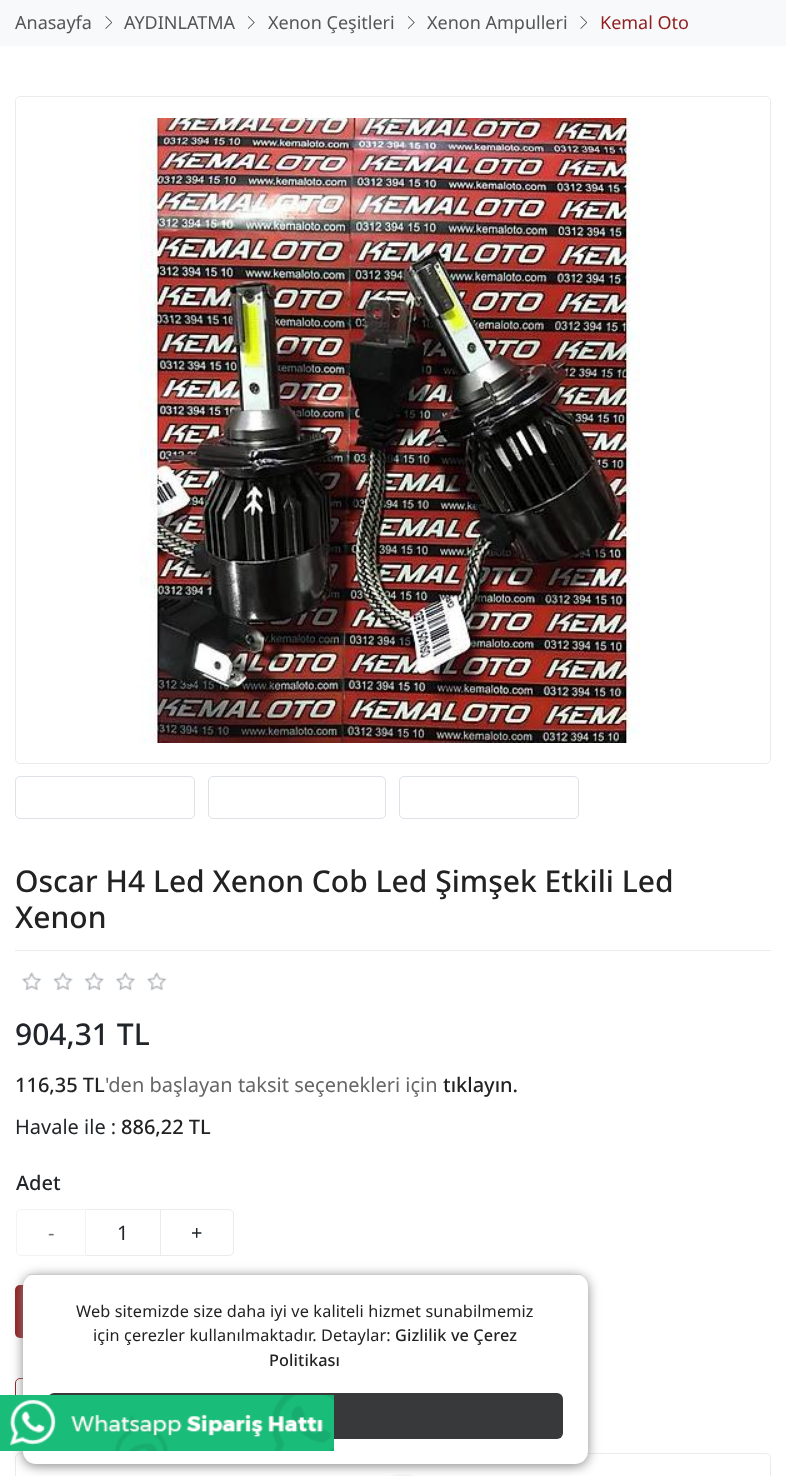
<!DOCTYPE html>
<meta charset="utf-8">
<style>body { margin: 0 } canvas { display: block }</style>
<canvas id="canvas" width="786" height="1476"></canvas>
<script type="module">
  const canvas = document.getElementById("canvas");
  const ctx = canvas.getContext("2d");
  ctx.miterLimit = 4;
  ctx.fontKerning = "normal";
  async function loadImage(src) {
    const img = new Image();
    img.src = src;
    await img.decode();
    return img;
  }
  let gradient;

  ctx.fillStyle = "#ffffff";
  ctx.fillRect(0, 0, 786, 1476);
  ctx.fillStyle = "#f8f9fa";
  ctx.fillRect(0, 0, 786, 46);
  ctx.font = "18px Noto Sans";
  ctx.fillStyle = "#555555";
  ctx.fillText("Anasayfa", 15, 29);
  ctx.drawImage(await loadImage("img1.png"), 105, 16, 7, 13);
  ctx.fillText("AYDINLATMA", 124, 29);
  ctx.drawImage(await loadImage("img2.png"), 248, 16, 7, 13);
  ctx.fillText("Xenon Çeşitleri", 268, 29);
  ctx.drawImage(await loadImage("img2.png"), 408, 16, 7, 13);
  ctx.fillText("Xenon Ampulleri", 427, 29);
  ctx.drawImage(await loadImage("img1.png"), 580, 16, 7, 13);
  ctx.fillStyle = "#922020";
  ctx.fillText("Kemal Oto", 600, 29);
  ctx.beginPath();
  ctx.roundRect(15, 1285, 200, 53, 5);
  ctx.fill();
  ctx.beginPath();
  ctx.roundRect(15.5, 1378.5, 173, 44, 4.5);
  ctx.strokeStyle = "#922020";
  ctx.stroke();
  ctx.beginPath();
  ctx.roundRect(15.5, 1453.5, 755, 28, 4.5);
  ctx.strokeStyle = "#e9ecef";
  ctx.stroke();
  gradient = ctx.createLinearGradient(399, 1468, 387, 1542);
  gradient.addColorStop(0, "#bf953f");
  gradient.addColorStop(0, "#4d9668");
  gradient.addColorStop(0, "#f8f9fa");
  gradient.addColorStop(1, "#fce2e0");
  gradient.addColorStop(1, "#4d9668");
  gradient.addColorStop(1, "#ee6a5f");
  ctx.fillStyle = gradient;
  ctx.beginPath();
  ctx.moveTo(406, 1474);
  ctx.bezierCurveTo(421, 1474, 434, 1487, 434, 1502);
  ctx.bezierCurveTo(434, 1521, 417, 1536, 396, 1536);
  ctx.bezierCurveTo(372, 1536, 352, 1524, 352, 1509);
  ctx.bezierCurveTo(352, 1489, 377, 1474, 406, 1474);
  ctx.closePath();
  ctx.fill();
  ctx.fillStyle = "#888888";
  ctx.filter = "blur(6px)";
  ctx.beginPath();
  ctx.roundRect(23, 1276, 565, 190, 13);
  ctx.fill();
  ctx.filter = "none";
  ctx.fillStyle = "#ffffff";
  ctx.beginPath();
  ctx.roundRect(23, 1274, 565, 190, 13);
  ctx.fill();
  ctx.fillStyle = "#cccccc";
  ctx.fillRect(29, 1274, 552, 1);
  ctx.letterSpacing = "0.12px";
  ctx.font = "16.25px Noto Sans";
  ctx.fillStyle = "#222222";
  ctx.fillText("Web sitemizde size daha iyi ve kaliteli hizmet sunabilmemiz", 76, 1317);
  ctx.fillText("için çerezler kullanılmaktadır. Detaylar:", 93, 1341);
  ctx.font = "500 16.25px Noto Sans";
  ctx.fillText("Gizlilik ve Çerez", 395, 1341);
  ctx.fillText("Politikası", 269, 1366);
  ctx.fillStyle = "#37393b";
  ctx.beginPath();
  ctx.roundRect(48, 1393, 515, 46, 6);
  ctx.fill();
  ctx.beginPath();
  ctx.roundRect(15.5, 96.5, 755, 667, 4.5);
  ctx.stroke();
  ctx.drawImage(await loadImage("img3.png"), 139, 118, 501, 625);
  ctx.beginPath();
  ctx.roundRect(15.5, 776.5, 179, 42, 4.5);
  ctx.strokeStyle = "#dee2e6";
  ctx.stroke();
  ctx.beginPath();
  ctx.roundRect(208.5, 776.5, 177, 42, 4.5);
  ctx.stroke();
  ctx.beginPath();
  ctx.roundRect(399.5, 776.5, 179, 42, 4.5);
  ctx.stroke();
  ctx.fillStyle = "#e9ecef";
  ctx.fillRect(15, 950, 756, 1);
  ctx.letterSpacing = "0px";
  ctx.font = "500 30px Noto Sans";
  ctx.fillStyle = "#222222";
  ctx.fillText("Oscar H4 Led Xenon Cob Led Şimşek Etkili Led", 15, 892);
  ctx.fillText("Xenon", 15, 928);
  ctx.drawImage(await loadImage("img4.png"), 22, 972, 145, 19);
  ctx.fillStyle = "#212529";
  ctx.fillText("904,31 TL", 15, 1045);
  ctx.font = "500 20px Noto Sans";
  ctx.fillStyle = "#222222";
  ctx.fillText("116,35 TL", 15, 1092);
  ctx.font = "20px Noto Sans";
  ctx.fillStyle = "#666666";
  ctx.fillText("'den başlayan taksit seçenekleri için", 105, 1092);
  ctx.font = "500 20px Noto Sans";
  ctx.fillStyle = "#222222";
  ctx.fillText("tıklayın.", 443, 1092);
  ctx.font = "20px Noto Sans";
  ctx.fillStyle = "#212529";
  ctx.fillText("Havale ile :", 15, 1134);
  ctx.font = "500 20px Noto Sans";
  ctx.fillStyle = "#222222";
  ctx.fillText("886,22 TL", 121, 1134);
  ctx.fillStyle = "#212529";
  ctx.fillText("Adet", 16, 1190);
  ctx.beginPath();
  ctx.roundRect(16.5, 1209.5, 69, 46, [4.5, 0, 0, 4.5]);
  ctx.strokeStyle = "#f1f3f5";
  ctx.stroke();
  ctx.font = "20px Noto Sans";
  ctx.fillStyle = "#6f7174";
  ctx.fillText("-", 48, 1240);
  ctx.fillStyle = "#e9ecef";
  ctx.fillRect(86, 1209, 75, 1);
  ctx.fillRect(86, 1255, 75, 1);
  ctx.fillStyle = "#212529";
  ctx.fillText("1", 117, 1240);
  ctx.beginPath();
  ctx.roundRect(160.5, 1209.5, 73, 46, [0, 4.5, 4.5, 0]);
  ctx.strokeStyle = "#e9ecef";
  ctx.stroke();
  ctx.fillText("+", 191, 1240);
  ctx.drawImage(await loadImage("img5.png"), 0, 1395, 334, 56);
</script>
